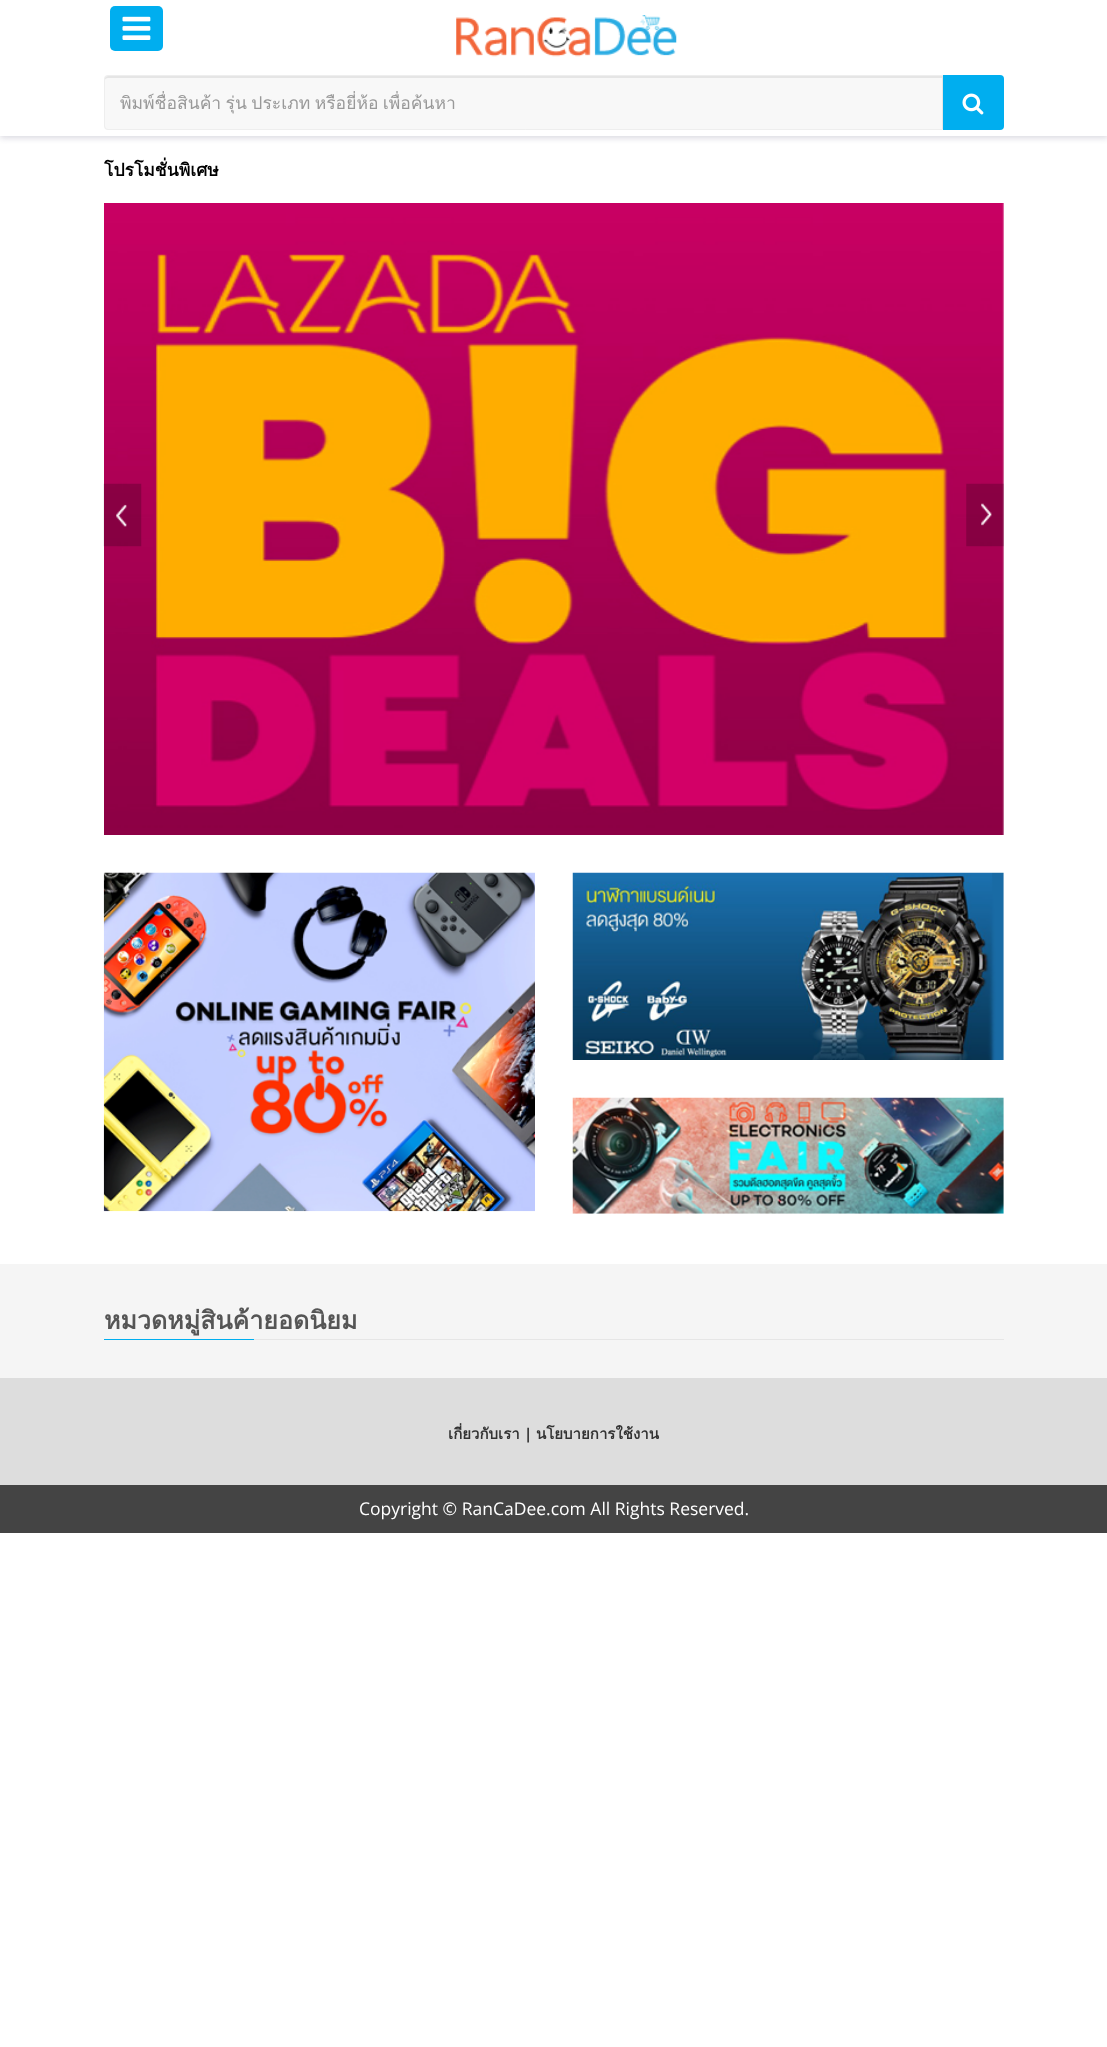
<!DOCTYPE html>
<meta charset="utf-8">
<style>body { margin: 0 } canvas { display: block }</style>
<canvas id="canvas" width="1107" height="2047"></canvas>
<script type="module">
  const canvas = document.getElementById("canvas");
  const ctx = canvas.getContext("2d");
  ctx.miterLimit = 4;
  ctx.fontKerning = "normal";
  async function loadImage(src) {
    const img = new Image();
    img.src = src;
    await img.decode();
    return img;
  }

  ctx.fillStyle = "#ffffff";
  ctx.fillRect(0, 0, 1107, 2047);
  ctx.save();
  ctx.beginPath();
  ctx.rect(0, 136, 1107, 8);
  ctx.clip();
  ctx.fillStyle = "#d9d8e0";
  ctx.filter = "blur(3px)";
  ctx.beginPath();
  ctx.rect(0, 1, 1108, 137);
  ctx.fill();
  ctx.filter = "none";
  ctx.restore();
  ctx.fillStyle = "#00aeef";
  ctx.beginPath();
  ctx.roundRect(110, 6, 53, 45, 5);
  ctx.fill();
  ctx.drawImage(await loadImage("img1.png"), 122, 16, 29, 24);
  ctx.drawImage(await loadImage("img2.png"), 456, 15, 221, 42);
  ctx.fillStyle = "#f8f8f8";
  ctx.beginPath();
  ctx.roundRect(104, 75, 840, 55, [4, 0, 0, 4]);
  ctx.fill();
  ctx.fillStyle = "#e5e5e5";
  ctx.beginPath();
  ctx.moveTo(108, 78);
  ctx.lineTo(942, 78);
  ctx.lineTo(942, 129);
  ctx.lineTo(943, 129);
  ctx.lineTo(943, 76);
  ctx.lineTo(108, 76);
  ctx.bezierCurveTo(106, 76, 105, 77, 105, 78);
  ctx.lineTo(105, 80);
  ctx.bezierCurveTo(105, 79, 106, 78, 108, 78);
  ctx.closePath();
  ctx.fill();
  ctx.beginPath();
  ctx.roundRect(104.5, 75.5, 839, 54, [3.5, 0, 0, 3.5]);
  ctx.strokeStyle = "#eeeeee";
  ctx.stroke();
  ctx.save();
  ctx.beginPath();
  ctx.rect(120, 90, 808, 28);
  ctx.clip();
  ctx.wordSpacing = "-1.5px";
  ctx.font = "17.5px Loma";
  ctx.fillStyle = "#999999";
  ctx.fillText("พิมพ์ชื่อสินค้า รุ่น ประเภท หรือยี่ห้อ เพื่อค้นหา", 120, 109);
  ctx.restore();
  ctx.fillStyle = "#00aeef";
  ctx.beginPath();
  ctx.roundRect(943, 75, 61, 55, [0, 4, 4, 0]);
  ctx.fill();
  ctx.drawImage(await loadImage("img3.png"), 962, 93, 22, 22);
  ctx.font = "bold 17.5px Loma";
  ctx.fillStyle = "#000000";
  ctx.fillText("โปรโมชั่นพิเศษ", 104, 176);
  ctx.drawImage(await loadImage("img4.png"), 104, 203, 900, 632);
  ctx.drawImage(await loadImage("img5.png"), 103, 483, 39, 64);
  ctx.drawImage(await loadImage("img6.png"), 966, 483, 38, 64);
  ctx.drawImage(await loadImage("img7.png"), 103, 872, 432, 340);
  ctx.drawImage(await loadImage("img8.png"), 572, 872, 432, 188);
  ctx.drawImage(await loadImage("img9.png"), 572, 1097, 432, 117);
  ctx.fillStyle = "#f5f5f5";
  ctx.fillRect(0, 1264, 1107, 114);
  ctx.fillStyle = "#e6e6e6";
  ctx.fillRect(254, 1339, 750, 1);
  ctx.font = "bold 25px Loma";
  ctx.fillStyle = "#555555";
  ctx.fillText("หมวดหมู่สินค้ายอดนิยม", 104, 1329);
  ctx.fillStyle = "#00aeef";
  ctx.fillRect(104, 1339, 150, 1);
  ctx.fillStyle = "#dddddd";
  ctx.fillRect(0, 1378, 1107, 107);
  ctx.font = "bold 15px Loma";
  ctx.fillStyle = "#333333";
  ctx.fillText("เกี่ยวกับเรา", 448, 1439);
  ctx.font = "bold 15px Open Sans";
  ctx.fillText("|", 524, 1439);
  ctx.font = "bold 15px Loma";
  ctx.fillText("นโยบายการใช้งาน", 536, 1439);
  ctx.fillStyle = "#444444";
  ctx.fillRect(0, 1485, 1107, 48);
  ctx.font = "17.5px Open Sans";
  ctx.fillStyle = "#ffffff";
  ctx.fillText("Copyright © RanCaDee.com All Rights Reserved.", 359, 1515);
</script>
